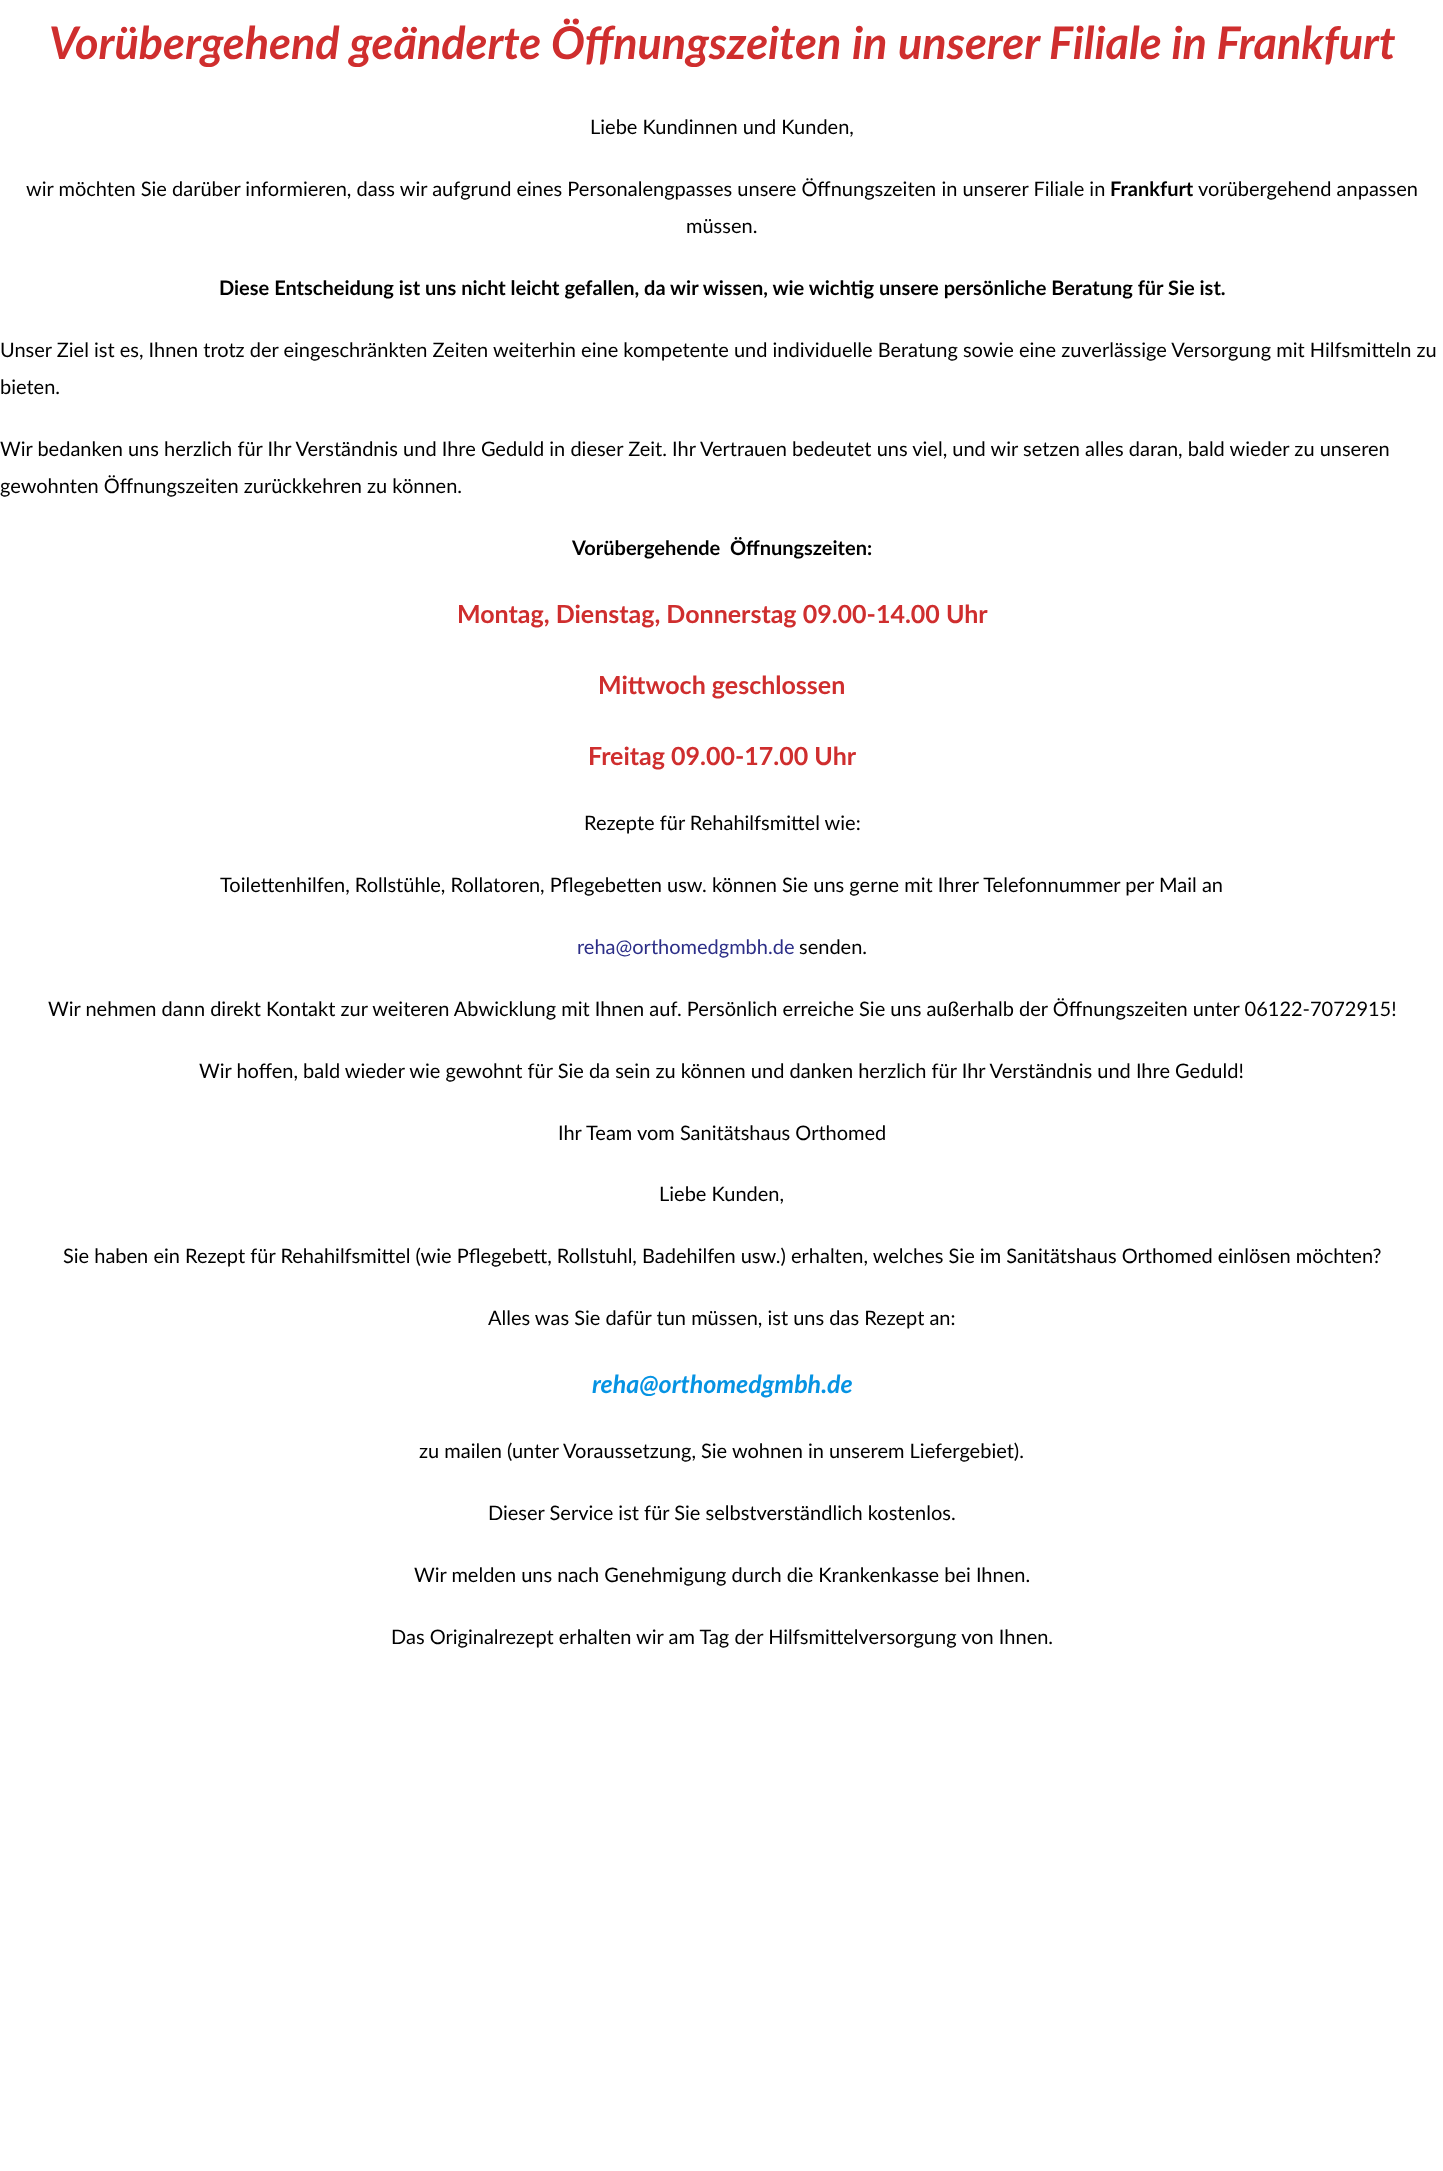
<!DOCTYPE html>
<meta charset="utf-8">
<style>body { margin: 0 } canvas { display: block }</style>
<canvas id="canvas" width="1443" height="2171"></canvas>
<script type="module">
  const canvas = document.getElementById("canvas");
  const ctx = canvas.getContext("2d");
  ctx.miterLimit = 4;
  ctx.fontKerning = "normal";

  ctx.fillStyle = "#ffffff";
  ctx.fillRect(0, 0, 1443, 2171);
  ctx.font = "italic bold 45px Lato";
  ctx.fillStyle = "#cf2e2e";
  ctx.fillText("Vorübergehend geänderte Öffnungszeiten", 49, 59);
  ctx.fillText("in", 852, 59);
  ctx.fillText("unserer Filiale in Frankfurt", 898, 59);
  ctx.font = "20px Lato";
  ctx.fillStyle = "#000000";
  ctx.fillText("Liebe Kundinnen und Kunden,", 590, 134);
  ctx.fillText("wir möchten Sie darüber informieren, dass wir aufgrund eines Personalengpasses unsere Öffnungszeiten in unserer Filiale in", 26, 196);
  ctx.font = "bold 20px Lato";
  ctx.fillText("Frankfurt", 1110, 196);
  ctx.font = "20px Lato";
  ctx.fillText("vorübergehend anpassen", 1198, 196);
  ctx.fillText("müssen.", 686, 233);
  ctx.font = "bold 20px Lato";
  ctx.fillText("Diese Entscheidung ist uns nicht leicht gefallen, da wir wissen, wie wichtig unsere persönliche Beratung für Sie ist.", 219, 295);
  ctx.font = "20px Lato";
  ctx.fillText("Unser Ziel ist es, Ihnen trotz der eingeschränkten Zeiten weiterhin eine kompetente und individuelle Beratung sowie eine zuverlässige Versorgung mit Hilfsmitteln zu", 0, 357);
  ctx.fillText("bieten.", 0, 394);
  ctx.fillText("Wir bedanken uns herzlich für Ihr Verständnis und Ihre Geduld in dieser Zeit. Ihr Vertrauen bedeutet uns viel, und wir setzen alles daran, bald wieder zu unseren", 0, 456);
  ctx.fillText("gewohnten Öffnungszeiten zurückkehren zu können.", 0, 493);
  ctx.font = "bold 20px Lato";
  ctx.fillText("Vorübergehende  Öffnungszeiten:", 572, 555);
  ctx.font = "bold 25px Lato";
  ctx.fillStyle = "#cf2e2e";
  ctx.fillText("Montag, Dienstag, Donnerstag 09.00-14.00 Uhr", 457, 623);
  ctx.fillText("Mittwoch geschlossen", 598, 694);
  ctx.fillText("Freitag 09.00-17.00 Uhr", 588, 765);
  ctx.font = "20px Lato";
  ctx.fillStyle = "#000000";
  ctx.fillText("Rezepte für Rehahilfsmittel wie:", 584, 830);
  ctx.fillText("Toilettenhilfen, Rollstühle, Rollatoren, Pflegebetten usw. können Sie uns gerne mit Ihrer Telefonnummer per Mail an", 220, 892);
  ctx.fillStyle = "#2c2e87";
  ctx.fillText("reha@orthomedgmbh.de", 577, 954);
  ctx.fillStyle = "#000000";
  ctx.fillText("senden.", 799, 954);
  ctx.fillText("Wir nehmen dann direkt Kontakt zur weiteren Abwicklung mit Ihnen auf. Persönlich erreiche Sie uns außerhalb der Öffnungszeiten unter 06122-7072915!", 48, 1016);
  ctx.fillText("Wir hoffen, bald wieder wie gewohnt für Sie da sein zu können und danken herzlich für Ihr Verständnis und Ihre Geduld!", 199, 1078);
  ctx.fillText("Ihr Team vom Sanitätshaus Orthomed", 558, 1140);
  ctx.fillText("Liebe Kunden,", 659, 1201);
  ctx.fillText("Sie haben ein Rezept für Rehahilfsmittel (wie Pflegebett, Rollstuhl, Badehilfen usw.) erhalten, welches Sie im Sanitätshaus Orthomed einlösen möchten?", 63, 1263);
  ctx.fillText("Alles was Sie dafür tun müssen, ist uns das Rezept an:", 488, 1325);
  ctx.font = "italic bold 25px Lato";
  ctx.fillStyle = "#0693e3";
  ctx.fillText("reha@orthomedgmbh.de", 592, 1393);
  ctx.font = "20px Lato";
  ctx.fillStyle = "#000000";
  ctx.fillText("zu mailen (unter Voraussetzung, Sie wohnen in unserem Liefergebiet).", 419, 1458);
  ctx.fillText("Dieser Service ist für Sie selbstverständlich kostenlos.", 488, 1520);
  ctx.fillText("Wir melden uns nach Genehmigung durch die Krankenkasse bei Ihnen.", 414, 1582);
  ctx.fillText("Das Originalrezept erhalten wir am Tag der Hilfsmittelversorgung von Ihnen.", 391, 1644);
</script>
